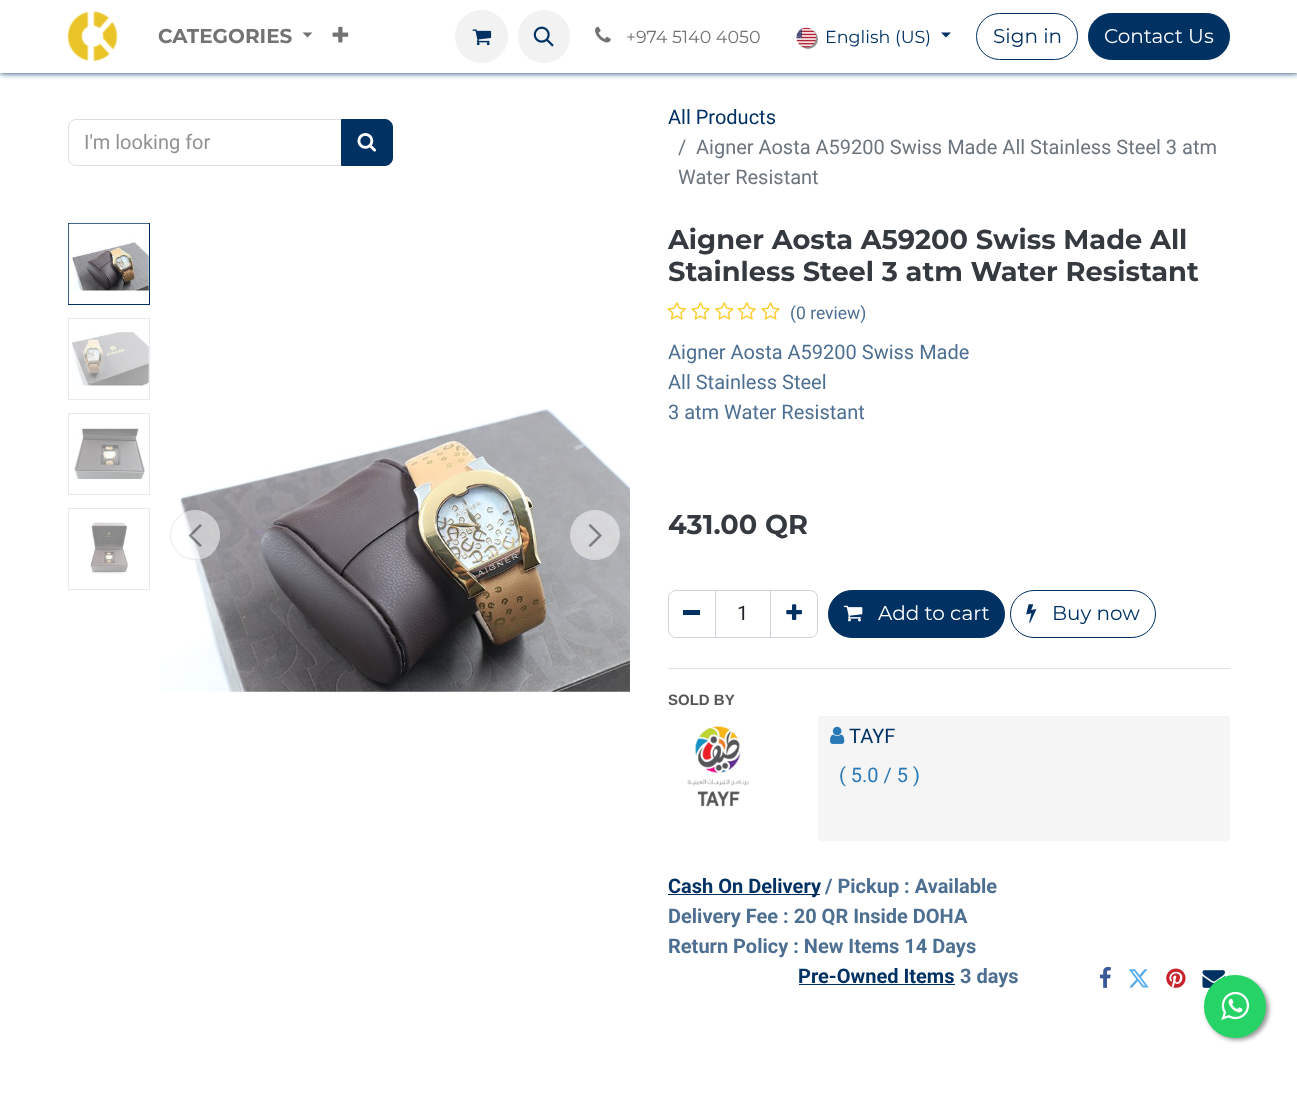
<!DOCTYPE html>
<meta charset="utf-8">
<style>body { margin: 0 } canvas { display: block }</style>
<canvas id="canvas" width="1297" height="1118"></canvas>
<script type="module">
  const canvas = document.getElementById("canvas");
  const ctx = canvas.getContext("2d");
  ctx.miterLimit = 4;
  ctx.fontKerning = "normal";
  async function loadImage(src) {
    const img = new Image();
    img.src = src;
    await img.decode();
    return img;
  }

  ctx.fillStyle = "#ffffff";
  ctx.fillRect(0, 0, 1297, 1118);
  ctx.fillStyle = "#003163";
  ctx.filter = "blur(3px)";
  ctx.beginPath();
  ctx.rect(0, 0, 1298, 73);
  ctx.fill();
  ctx.filter = "none";
  ctx.fillStyle = "#ffffff";
  ctx.fillRect(0, 0, 1297, 73);
  ctx.drawImage(await loadImage("img1.png"), 67, 11, 51, 51);
  ctx.font = "bold 20px Montserrat";
  ctx.fillStyle = "#737373";
  ctx.fillText("CATEGORIES", 158, 43);
  ctx.beginPath();
  ctx.moveTo(302.5, 32.5);
  ctx.lineTo(312.5, 32.5);
  ctx.lineTo(307.5, 37.5);
  ctx.closePath();
  ctx.fill();
  ctx.drawImage(await loadImage("img2.png"), 332, 26, 17, 17);
  ctx.fillStyle = "#f2f2f2";
  ctx.beginPath();
  ctx.arc(481.5, 36.5, 26.5, 0, Math.PI * 2);
  ctx.fill();
  ctx.drawImage(await loadImage("img3.png"), 472, 29, 20, 17);
  ctx.beginPath();
  ctx.roundRect(518, 10, 52, 53, 26);
  ctx.fill();
  ctx.drawImage(await loadImage("img4.png"), 533, 26, 21, 21);
  ctx.drawImage(await loadImage("img5.png"), 595, 26, 16, 17);
  ctx.font = "17.5px Montserrat";
  ctx.fillStyle = "#737373";
  ctx.fillText("+974 5140 4050", 626, 43);
  ctx.fillStyle = "rgba(0, 0, 0, 0.43)";
  ctx.filter = "blur(0.5px)";
  ctx.beginPath();
  ctx.roundRect(798, 29, 20, 20, 10);
  ctx.fill();
  ctx.filter = "none";
  ctx.drawImage(await loadImage("img6.png"), 796, 27, 21, 21);
  ctx.fillStyle = "#003163";
  ctx.fillText("English (US)", 825, 43);
  ctx.beginPath();
  ctx.moveTo(941, 32.5);
  ctx.lineTo(951, 32.5);
  ctx.lineTo(946, 37.5);
  ctx.closePath();
  ctx.fill();
  ctx.beginPath();
  ctx.roundRect(976.5, 13.5, 101, 46, 23);
  ctx.strokeStyle = "#003163";
  ctx.stroke();
  ctx.font = "20px Montserrat";
  ctx.fillText("Sign in", 993, 43);
  ctx.beginPath();
  ctx.roundRect(1088.5, 13.5, 141, 46, 23);
  ctx.fill();
  ctx.stroke();
  ctx.fillStyle = "#ffffff";
  ctx.fillText("Contact Us", 1104, 43);
  ctx.beginPath();
  ctx.roundRect(68.5, 119.5, 274, 46, [7.5, 0, 0, 7.5]);
  ctx.strokeStyle = "#dededf";
  ctx.stroke();
  ctx.font = "20px Roboto";
  ctx.fillStyle = "#909294";
  ctx.fillText("I'm looking for", 84, 149);
  ctx.fillStyle = "#003163";
  ctx.beginPath();
  ctx.roundRect(341.5, 119.5, 51, 46, [0, 7.5, 7.5, 0]);
  ctx.fill();
  ctx.strokeStyle = "#003163";
  ctx.stroke();
  ctx.drawImage(await loadImage("img7.png"), 357, 133, 20, 19);
  ctx.fillText("All Products", 668, 124);
  ctx.fillStyle = "#6c757d";
  ctx.fillText("/", 678, 154);
  ctx.fillText("Aigner Aosta A59200 Swiss Made All Stainless Steel 3 atm", 696, 154);
  ctx.fillText("Water Resistant", 678, 184);
  ctx.strokeRect(68.5, 223.5, 81, 81);
  ctx.drawImage(await loadImage("img8.png"), 68, 223, 81, 81);
  ctx.strokeStyle = "#e7eaed";
  ctx.strokeRect(68.5, 318.5, 81, 81);
  ctx.drawImage(await loadImage("img9.png"), 72, 332, 77, 54);
  ctx.strokeRect(68.5, 413.5, 81, 81);
  ctx.drawImage(await loadImage("img10.png"), 74, 428, 71, 52);
  ctx.strokeRect(68.5, 508.5, 81, 81);
  ctx.drawImage(await loadImage("img11.png"), 90, 522, 38, 53);
  ctx.drawImage(await loadImage("img12.png"), 160, 408, 470, 287);
  ctx.fillStyle = "rgba(255, 255, 255, 0.5)";
  ctx.beginPath();
  ctx.arc(195, 535, 25, 0, Math.PI * 2);
  ctx.fill();
  ctx.beginPath();
  ctx.arc(195, 535, 24.5, 0, Math.PI * 2);
  ctx.strokeStyle = "rgba(206, 212, 218, 0.5)";
  ctx.stroke();
  ctx.fillStyle = "rgba(33, 37, 41, 0.5)";
  ctx.beginPath();
  ctx.moveTo(188.5, 535.5);
  ctx.lineTo(200, 524);
  ctx.lineTo(202, 525.5);
  ctx.lineTo(192, 535.5);
  ctx.lineTo(202, 545.5);
  ctx.lineTo(200, 547);
  ctx.closePath();
  ctx.fill();
  ctx.fillStyle = "rgba(255, 255, 255, 0.5)";
  ctx.beginPath();
  ctx.arc(595, 535, 25, 0, Math.PI * 2);
  ctx.fill();
  ctx.beginPath();
  ctx.arc(595, 535, 24.5, 0, Math.PI * 2);
  ctx.stroke();
  ctx.fillStyle = "rgba(33, 37, 41, 0.5)";
  ctx.beginPath();
  ctx.moveTo(602, 535.5);
  ctx.lineTo(590.5, 547);
  ctx.lineTo(588.5, 545.5);
  ctx.lineTo(598.5, 535.5);
  ctx.lineTo(588.5, 525.5);
  ctx.lineTo(590.5, 524);
  ctx.closePath();
  ctx.fill();
  ctx.font = "bold 27.25px Montserrat";
  ctx.fillStyle = "#343a40";
  ctx.fillText("Aigner Aosta A59200 Swiss Made All", 668, 249);
  ctx.fillText("Stainless Steel 3 atm Water Resistant", 668, 281);
  ctx.drawImage(await loadImage("img13.png"), 667, 302, 19, 18);
  ctx.drawImage(await loadImage("img14.png"), 691, 302, 19, 18);
  ctx.drawImage(await loadImage("img15.png"), 715, 302, 19, 18);
  ctx.drawImage(await loadImage("img13.png"), 737, 302, 19, 18);
  ctx.drawImage(await loadImage("img14.png"), 761, 302, 19, 18);
  ctx.font = "17.5px Roboto";
  ctx.fillStyle = "#4d6f92";
  ctx.fillText("(0 review)", 790, 319);
  ctx.font = "20px Roboto";
  ctx.fillText("Aigner Aosta A59200 Swiss Made", 668, 359);
  ctx.fillText("All Stainless Steel", 668, 389);
  ctx.fillText("3 atm Water Resistant", 668, 419);
  ctx.font = "bold 27.25px Montserrat";
  ctx.fillStyle = "#343a40";
  ctx.fillText("431.00 QR", 668, 534);
  ctx.strokeStyle = "#ced4da";
  ctx.strokeRect(715.5, 590.5, 55, 47);
  ctx.beginPath();
  ctx.roundRect(668.5, 590.5, 47, 47, [7.5, 0, 0, 7.5]);
  ctx.stroke();
  ctx.fillStyle = "#003163";
  ctx.fillRect(683, 610, 17, 5);
  ctx.font = "20px Roboto";
  ctx.fillStyle = "#212529";
  ctx.fillText("1", 737, 620);
  ctx.beginPath();
  ctx.roundRect(770.5, 590.5, 47, 47, [0, 7.5, 7.5, 0]);
  ctx.stroke();
  ctx.drawImage(await loadImage("img16.png"), 786, 604, 16, 16);
  ctx.fillStyle = "#003163";
  ctx.beginPath();
  ctx.roundRect(828.5, 590.5, 176, 47, 23.5);
  ctx.fill();
  ctx.strokeStyle = "#003163";
  ctx.stroke();
  ctx.drawImage(await loadImage("img17.png"), 843, 605, 20, 17);
  ctx.font = "20px Montserrat";
  ctx.fillStyle = "#ffffff";
  ctx.fillText("Add to cart", 878, 620);
  ctx.beginPath();
  ctx.roundRect(1010.5, 590.5, 145, 47, 23.5);
  ctx.stroke();
  ctx.drawImage(await loadImage("img18.png"), 1026, 604, 11, 19);
  ctx.fillStyle = "#003163";
  ctx.fillText("Buy now", 1052, 620);
  ctx.fillStyle = "#d9e0e8";
  ctx.fillRect(668, 668, 562, 1);
  ctx.font = "bold 15px Liberation Sans";
  ctx.fillStyle = "#555555";
  ctx.fillText("SOLD BY", 668, 705);
  ctx.drawImage(await loadImage("img19.png"), 687, 726, 62, 81);
  ctx.fillStyle = "#f5f5f5";
  ctx.beginPath();
  ctx.roundRect(818, 716, 412, 125, 4);
  ctx.fill();
  ctx.drawImage(await loadImage("img20.png"), 830, 726, 15, 18);
  ctx.font = "20px Roboto";
  ctx.fillStyle = "#003163";
  ctx.fillText("TAYF", 849, 743);
  ctx.fillStyle = "#2979b7";
  ctx.fillText("( 5.0 / 5 )", 839, 782);
  ctx.fillStyle = "#003163";
  ctx.fillRect(668, 894, 152, 1);
  ctx.font = "bold 20px Roboto";
  ctx.fillText("Cash On Delivery", 668, 893);
  ctx.fillStyle = "#4d6f92";
  ctx.fillText("/ Pickup : Available", 825, 893);
  ctx.fillText("Delivery Fee : 20 QR Inside DOHA", 668, 923);
  ctx.fillText("Return Policy : New Items 14 Days", 668, 953);
  ctx.fillStyle = "#003163";
  ctx.fillText("Pre-Owned Items", 798, 983);
  ctx.fillRect(799, 984, 156, 1);
  ctx.fillStyle = "#4d6f92";
  ctx.fillText("3 days", 960, 983);
  ctx.drawImage(await loadImage("img21.png"), 1099, 967, 12, 21);
  ctx.drawImage(await loadImage("img22.png"), 1128, 969, 21, 19);
  ctx.drawImage(await loadImage("img23.png"), 1166, 968, 20, 20);
  ctx.drawImage(await loadImage("img24.png"), 1202, 970, 23, 18);
  ctx.fillStyle = "#999999";
  ctx.filter = "blur(2px)";
  ctx.beginPath();
  ctx.roundRect(1206, 978, 63, 62, 31);
  ctx.fill();
  ctx.filter = "none";
  ctx.fillStyle = "#25d366";
  ctx.beginPath();
  ctx.roundRect(1204, 975, 62, 63, 31);
  ctx.fill();
  ctx.drawImage(await loadImage("img25.png"), 1221, 991, 29, 29);
</script>
